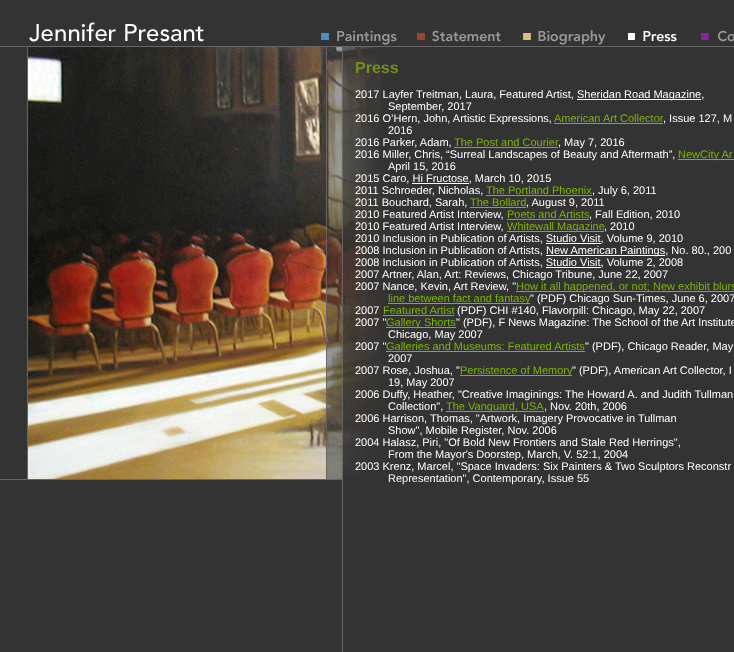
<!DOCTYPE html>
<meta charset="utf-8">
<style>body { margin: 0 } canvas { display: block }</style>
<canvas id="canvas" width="734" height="652"></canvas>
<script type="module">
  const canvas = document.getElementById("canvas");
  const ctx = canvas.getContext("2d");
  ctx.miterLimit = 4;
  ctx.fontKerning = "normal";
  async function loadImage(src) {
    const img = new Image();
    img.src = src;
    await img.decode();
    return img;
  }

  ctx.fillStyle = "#333333";
  ctx.fillRect(0, 0, 734, 652);
  ctx.fillStyle = "#666666";
  ctx.fillRect(0, 479, 342, 1);
  ctx.drawImage(await loadImage("img1.png"), 29, 22, 175, 20);
  ctx.drawImage(await loadImage("img2.png"), 321, 30, 76, 15);
  ctx.drawImage(await loadImage("img3.png"), 417, 30, 84, 12);
  ctx.drawImage(await loadImage("img4.png"), 523, 30, 83, 15);
  ctx.drawImage(await loadImage("img5.png"), 628, 31, 49, 11);
  ctx.drawImage(await loadImage("img6.png"), 701, 30, 33, 12);
  ctx.fillRect(0, 46, 734, 1);
  ctx.drawImage(await loadImage("img7.png"), 24, 47, 318, 432);
  ctx.fillRect(342, 47, 1, 605);
  ctx.drawImage(await loadImage("img8.png"), 343, 47, 38, 429);
  ctx.font = "bold 16px Liberation Sans";
  ctx.fillStyle = "#749023";
  ctx.fillText("Press", 355, 73);
  ctx.font = "11px Liberation Sans";
  ctx.fillStyle = "#ffffff";
  ctx.fillText("2017 Layfer Treitman, Laura, Featured Artist,", 355, 98);
  ctx.fillRect(577, 99, 124, 1);
  ctx.fillText("Sheridan Road Magazine,", 577, 98);
  ctx.fillText("September, 2017", 388, 110);
  ctx.fillText("2016 O’Hern, John, Artistic Expressions,", 355, 122);
  ctx.fillStyle = "#7cb608";
  ctx.fillText("American Art Collector", 554, 122);
  ctx.fillRect(554, 123, 109, 1);
  ctx.fillStyle = "#ffffff";
  ctx.fillText(", Issue 127, M", 663, 122);
  ctx.fillText("2016", 388, 134);
  ctx.fillText("2016 Parker, Adam,", 355, 146);
  ctx.fillStyle = "#7cb608";
  ctx.fillText("The Post and Courier", 454, 146);
  ctx.fillRect(454, 147, 104, 1);
  ctx.fillStyle = "#ffffff";
  ctx.fillText(", May 7, 2016", 558, 146);
  ctx.fillText("2016 Miller, Chris, “Surreal Landscapes of Beauty and Aftermath”,", 355, 158);
  ctx.fillStyle = "#7cb608";
  ctx.fillRect(678, 159, 56, 1);
  ctx.fillText("NewCity Ar", 678, 158);
  ctx.fillStyle = "#ffffff";
  ctx.fillText("April 15, 2016", 388, 170);
  ctx.fillText("2015 Caro, Hi Fructose, March 10, 2015", 355, 182);
  ctx.fillRect(412, 183, 57, 1);
  ctx.fillText("2011 Schroeder, Nicholas,", 355, 194);
  ctx.fillStyle = "#7cb608";
  ctx.fillText("The Portland Phoenix", 486, 194);
  ctx.fillRect(486, 195, 106, 1);
  ctx.fillStyle = "#ffffff";
  ctx.fillText(", July 6, 2011", 592, 194);
  ctx.fillText("2011 Bouchard, Sarah,", 355, 206);
  ctx.fillStyle = "#7cb608";
  ctx.fillText("The Bollard", 470, 206);
  ctx.fillRect(470, 207, 56, 1);
  ctx.fillStyle = "#ffffff";
  ctx.fillText(", August 9, 2011", 526, 206);
  ctx.fillText("2010 Featured Artist Interview,", 355, 218);
  ctx.fillStyle = "#7cb608";
  ctx.fillText("Poets and Artists", 507, 218);
  ctx.fillRect(507, 219, 82, 1);
  ctx.fillStyle = "#ffffff";
  ctx.fillText(", Fall Edition, 2010", 589, 218);
  ctx.fillText("2010 Featured Artist Interview,", 355, 230);
  ctx.fillStyle = "#7cb608";
  ctx.fillRect(507, 231, 97, 1);
  ctx.fillText("Whitewall Magazine", 507, 230);
  ctx.fillStyle = "#ffffff";
  ctx.fillText(", 2010", 604, 230);
  ctx.fillText("2010 Inclusion in Publication of Artists, Studio Visit, Volume 9, 2010", 355, 242);
  ctx.fillRect(546, 243, 55, 1);
  ctx.fillText("2008 Inclusion in Publication of Artists,", 355, 254);
  ctx.fillRect(546, 255, 119, 1);
  ctx.fillText("New American Paintings, No. 80., 200", 546, 254);
  ctx.fillText("2008 Inclusion in Publication of Artists, Studio Visit, Volume 2, 2008", 355, 266);
  ctx.fillRect(546, 267, 55, 1);
  ctx.fillText("2007 Artner, Alan, Art: Reviews, Chicago Tribune, June 22, 2007", 355, 278);
  ctx.fillText("2007 Nance, Kevin, Art Review, \"", 355, 290);
  ctx.fillStyle = "#7cb608";
  ctx.fillRect(516, 291, 218, 1);
  ctx.fillText("How it all happened, or not; New exhibit blurs", 516, 290);
  ctx.fillRect(388, 303, 142, 1);
  ctx.fillText("line between fact and fantasy", 388, 302);
  ctx.fillStyle = "#ffffff";
  ctx.fillText("\" (PDF) Chicago Sun-Times, June 6, 2007", 530, 302);
  ctx.fillText("2007", 355, 314);
  ctx.fillStyle = "#7cb608";
  ctx.fillText("Featured Artist", 383, 314);
  ctx.fillRect(383, 315, 71, 1);
  ctx.fillStyle = "#ffffff";
  ctx.fillText("(PDF) CHI #140, Flavorpill: Chicago, May 22, 2007", 457, 314);
  ctx.fillText("2007 \"", 355, 326);
  ctx.fillStyle = "#7cb608";
  ctx.fillRect(386, 327, 70, 1);
  ctx.fillText("Gallery Shorts", 386, 326);
  ctx.fillStyle = "#ffffff";
  ctx.fillText("\" (PDF), F News Magazine: The School of the Art Institute", 456, 326);
  ctx.fillText("Chicago, May 2007", 388, 338);
  ctx.fillText("2007 \"", 355, 350);
  ctx.fillStyle = "#7cb608";
  ctx.fillText("Galleries and Museums: Featured Artists", 386, 350);
  ctx.fillRect(386, 351, 199, 1);
  ctx.fillStyle = "#ffffff";
  ctx.fillText("\" (PDF), Chicago Reader, May", 585, 350);
  ctx.fillText("2007", 388, 362);
  ctx.fillText("2007 Rose, Joshua, \"", 355, 374);
  ctx.fillStyle = "#7cb608";
  ctx.fillRect(460, 375, 112, 1);
  ctx.fillText("Persistence of Memory", 460, 374);
  ctx.fillStyle = "#ffffff";
  ctx.fillText("\" (PDF), American Art Collector, I", 572, 374);
  ctx.fillText("19, May 2007", 388, 386);
  ctx.fillText("2006 Duffy, Heather, \"Creative Imaginings: The Howard A. and Judith Tullman", 355, 398);
  ctx.fillText("Collection\",", 388, 410);
  ctx.fillStyle = "#7cb608";
  ctx.fillRect(446, 411, 98, 1);
  ctx.fillText("The Vanguard, USA", 446, 410);
  ctx.fillStyle = "#ffffff";
  ctx.fillText(", Nov. 20th, 2006", 544, 410);
  ctx.fillText("2006 Harrison, Thomas, \"Artwork, Imagery Provocative in Tullman", 355, 422);
  ctx.fillText("Show\", Mobile Register, Nov. 2006", 388, 434);
  ctx.fillText("2004 Halasz, Piri, \"Of Bold New Frontiers and Stale Red Herrings\",", 355, 446);
  ctx.fillText("From the Mayor's Doorstep, March, V. 52:1, 2004", 388, 458);
  ctx.fillText("2003 Krenz, Marcel, \"Space Invaders: Six Painters & Two Sculptors Reconstr", 355, 470);
  ctx.fillText("Representation\", Contemporary, Issue 55", 388, 482);
</script>
